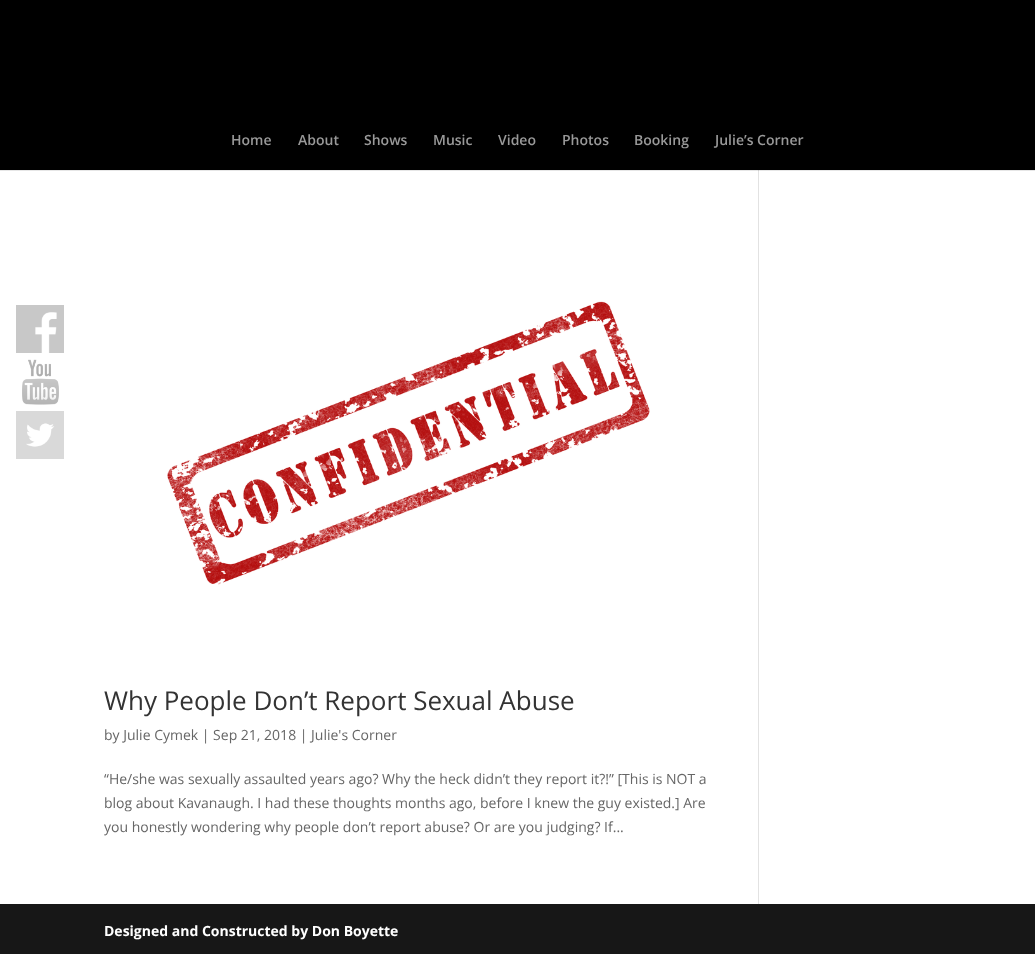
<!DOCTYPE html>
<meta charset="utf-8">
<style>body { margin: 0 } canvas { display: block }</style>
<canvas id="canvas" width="1035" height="954"></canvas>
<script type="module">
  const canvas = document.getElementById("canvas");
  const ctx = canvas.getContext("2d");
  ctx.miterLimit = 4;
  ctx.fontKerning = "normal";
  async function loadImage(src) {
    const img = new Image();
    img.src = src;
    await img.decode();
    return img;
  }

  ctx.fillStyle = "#ffffff";
  ctx.fillRect(0, 0, 1035, 954);
  ctx.fillStyle = "#e6e6e6";
  ctx.fillRect(0, 170, 1035, 1);
  ctx.drawImage(await loadImage("img1.png"), 16, 305, 48, 48);
  ctx.drawImage(await loadImage("img2.png"), 22, 359, 37, 46);
  ctx.drawImage(await loadImage("img3.png"), 16, 411, 48, 48);
  ctx.fillStyle = "#000000";
  ctx.fillRect(0, 0, 1035, 170);
  ctx.font = "600 14px Open Sans";
  ctx.fillStyle = "#999999";
  ctx.fillText("Home", 231, 145);
  ctx.fillText("About", 298, 145);
  ctx.fillText("Shows", 364, 145);
  ctx.fillText("Music", 433, 145);
  ctx.fillText("Video", 498, 145);
  ctx.fillText("Photos", 562, 145);
  ctx.fillText("Booking", 634, 145);
  ctx.fillText("Julie’s Corner", 715, 145);
  ctx.drawImage(await loadImage("img4.png"), 167, 301, 483, 284);
  ctx.font = "26px Open Sans";
  ctx.fillStyle = "#333333";
  ctx.fillText("Why People Don’t Report Sexual Abuse", 104, 710);
  ctx.font = "14px Open Sans";
  ctx.fillStyle = "#666666";
  ctx.fillText("by Julie Cymek | Sep 21, 2018 | Julie's Corner", 104, 740);
  ctx.fillText("“He/she was sexually assaulted years ago? Why the heck didn’t they report it?!” [This is NOT a", 104, 784);
  ctx.fillText("blog about Kavanaugh. I had these thoughts months ago, before I knew the guy existed.] Are", 104, 808);
  ctx.fillText("you honestly wondering why people don’t report abuse? Or are you judging? If...", 104, 832);
  ctx.fillStyle = "#e2e2e2";
  ctx.fillRect(758, 170, 1, 734);
  ctx.fillStyle = "#cbcbcb";
  ctx.fillRect(758, 170, 1, 1);
  ctx.fillStyle = "#171717";
  ctx.fillRect(0, 904, 1035, 50);
  ctx.font = "bold 14px Open Sans";
  ctx.fillStyle = "#ffffff";
  ctx.fillText("Designed and Constructed by Don Boyette", 104, 936);
</script>
